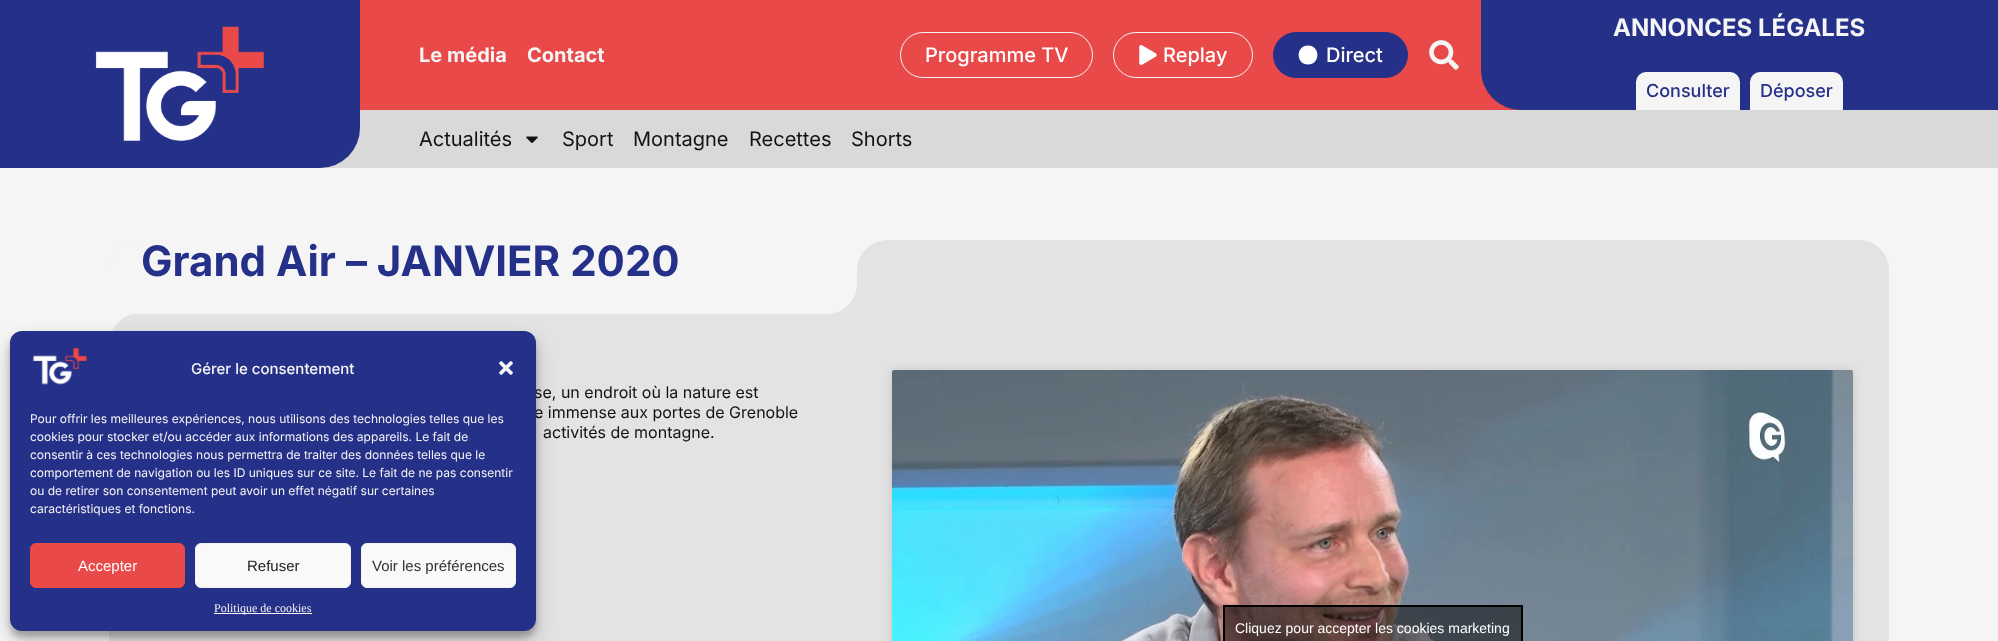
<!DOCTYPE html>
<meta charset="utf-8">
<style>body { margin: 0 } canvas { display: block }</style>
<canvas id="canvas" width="1998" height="641"></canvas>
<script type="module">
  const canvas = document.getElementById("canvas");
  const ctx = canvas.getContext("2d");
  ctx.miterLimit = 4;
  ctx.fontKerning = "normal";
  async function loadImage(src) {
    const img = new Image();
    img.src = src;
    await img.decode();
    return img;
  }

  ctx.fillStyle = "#f5f5f5";
  ctx.fillRect(0, 0, 1998, 641);
  ctx.fillStyle = "#d9d9d9";
  ctx.fillRect(320, 110, 1678, 58);
  ctx.fillStyle = "#253089";
  ctx.beginPath();
  ctx.roundRect(0, 0, 360, 168, [0, 0, 40, 0]);
  ctx.fill();
  ctx.drawImage(await loadImage("img1.png"), 95, 26, 169, 115);
  ctx.fillStyle = "#e94949";
  ctx.fillRect(360, 0, 1161, 110);
  ctx.font = "bold 20px Inter";
  ctx.fillStyle = "#f5f5f5";
  ctx.fillText("Le média", 419, 62);
  ctx.fillText("Contact", 527, 62);
  ctx.beginPath();
  ctx.roundRect(900.5, 32.5, 192, 45, 22.5);
  ctx.strokeStyle = "#f5f5f5";
  ctx.stroke();
  ctx.font = "500 20px Inter";
  ctx.fillStyle = "#ffffff";
  ctx.fillText("Programme TV", 925, 62);
  ctx.beginPath();
  ctx.roundRect(1113.5, 32.5, 139, 45, 22.5);
  ctx.stroke();
  ctx.drawImage(await loadImage("img2.png"), 1139, 45, 18, 20);
  ctx.fillText("Replay", 1163, 62);
  ctx.fillStyle = "#253089";
  ctx.beginPath();
  ctx.roundRect(1273.5, 32.5, 134, 45, 22.5);
  ctx.fill();
  ctx.strokeStyle = "#253089";
  ctx.stroke();
  ctx.fillStyle = "#ffffff";
  ctx.beginPath();
  ctx.moveTo(1308, 45.5);
  ctx.bezierCurveTo(1295.5, 45.5, 1295.5, 64.5, 1308, 64.5);
  ctx.bezierCurveTo(1320.5, 64.5, 1320.5, 45.5, 1308, 45.5);
  ctx.closePath();
  ctx.fill();
  ctx.fillText("Direct", 1326, 62);
  ctx.drawImage(await loadImage("img3.png"), 1429, 40, 30, 30);
  ctx.fillStyle = "#253089";
  ctx.beginPath();
  ctx.roundRect(1481, 0, 517, 110, [0, 0, 0, 40]);
  ctx.fill();
  ctx.font = "bold 24px Inter";
  ctx.fillStyle = "#f5f5f5";
  ctx.fillText("ANNONCES LÉGALES", 1613, 36);
  ctx.beginPath();
  ctx.roundRect(1636, 72, 104, 38, [10, 10, 0, 0]);
  ctx.fill();
  ctx.font = "500 18px Inter";
  ctx.fillStyle = "#253089";
  ctx.fillText("Consulter", 1646, 97);
  ctx.fillStyle = "#f5f5f5";
  ctx.beginPath();
  ctx.roundRect(1750, 72, 93, 38, [10, 10, 0, 0]);
  ctx.fill();
  ctx.fillStyle = "#253089";
  ctx.fillText("Déposer", 1760, 97);
  ctx.font = "20px Inter";
  ctx.fillStyle = "#121212";
  ctx.fillText("Actualités", 419, 146);
  ctx.drawImage(await loadImage("img4.png"), 526, 136, 12, 7);
  ctx.fillText("Sport", 562, 146);
  ctx.fillText("Montagne", 633, 146);
  ctx.fillText("Recettes", 749, 146);
  ctx.fillText("Shorts", 851, 146);
  ctx.fillStyle = "#e3e3e3";
  ctx.beginPath();
  ctx.roundRect(109, 240, 1780, 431, 30);
  ctx.fill();
  ctx.fillStyle = "#f5f5f5";
  ctx.beginPath();
  ctx.roundRect(109, 240, 748, 74, [30, 0, 30, 0]);
  ctx.fill();
  ctx.font = "bold 42px Inter";
  ctx.fillStyle = "#253089";
  ctx.fillText("Grand Air – JANVIER 2020", 141, 276);
  ctx.fillStyle = "#f5f5f5";
  ctx.beginPath();
  ctx.moveTo(140, 313);
  ctx.lineTo(109, 313);
  ctx.lineTo(109, 344);
  ctx.bezierCurveTo(109, 327, 123, 313, 140, 313);
  ctx.closePath();
  ctx.fill();
  ctx.beginPath();
  ctx.moveTo(888, 240);
  ctx.lineTo(857, 240);
  ctx.lineTo(857, 271);
  ctx.bezierCurveTo(857, 254, 871, 240, 888, 240);
  ctx.closePath();
  ctx.fill();
  ctx.font = "16px Inter";
  ctx.fillStyle = "#121212";
  ctx.fillText("se, un endroit où la nature est", 534, 398);
  ctx.fillText("e immense aux portes de Grenoble", 534, 418);
  ctx.fillText("activités de montagne.", 543, 438);
  ctx.fillStyle = "rgba(0, 0, 0, 0.15)";
  ctx.filter = "blur(5px)";
  ctx.beginPath();
  ctx.roundRect(892, 371, 961, 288, 3);
  ctx.fill();
  ctx.filter = "none";
  ctx.fillStyle = "rgba(0, 0, 0, 0.5)";
  ctx.filter = "blur(0.5px)";
  ctx.beginPath();
  ctx.roundRect(892, 370, 961, 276, 3);
  ctx.fill();
  ctx.filter = "none";
  ctx.drawImage(await loadImage("img5.png"), 892, 370, 961, 271);
  ctx.beginPath();
  ctx.rect(1224, 606, 298, 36);
  ctx.fill();
  ctx.strokeStyle = "#000000";
  ctx.lineWidth = 2;
  ctx.stroke();
  ctx.font = "14px Liberation Sans";
  ctx.fillStyle = "#ffffff";
  ctx.fillText("Cliquez pour accepter les cookies marketing", 1235, 633);
  ctx.fillStyle = "rgba(0, 0, 0, 0.23)";
  ctx.filter = "blur(3px)";
  ctx.beginPath();
  ctx.roundRect(10, 337, 526, 300, 12);
  ctx.fill();
  ctx.filter = "none";
  ctx.fillStyle = "rgba(0, 0, 0, 0.19)";
  ctx.filter = "blur(10px)";
  ctx.beginPath();
  ctx.roundRect(10, 341, 526, 300, 12);
  ctx.fill();
  ctx.filter = "none";
  ctx.fillStyle = "#253089";
  ctx.beginPath();
  ctx.roundRect(10, 331, 526, 300, 12);
  ctx.fill();
  ctx.drawImage(await loadImage("img6.png"), 32, 347, 56, 38);
  ctx.font = "500 15px Inter";
  ctx.fillStyle = "#f5f5f5";
  ctx.fillText("Gérer le consentement", 191, 374);
  ctx.drawImage(await loadImage("img7.png"), 499, 361, 14, 14);
  ctx.font = "12px Inter";
  ctx.fillText("Pour offrir les meilleures expériences, nous utilisons des technologies telles que les", 30, 423);
  ctx.fillText("cookies pour stocker et/ou accéder aux informations des appareils. Le fait de", 30, 441);
  ctx.fillText("consentir à ces technologies nous permettra de traiter des données telles que le", 30, 459);
  ctx.fillText("comportement de navigation ou les ID uniques sur ce site. Le fait de ne pas consentir", 30, 477);
  ctx.fillText("ou de retirer son consentement peut avoir un effet négatif sur certaines", 30, 495);
  ctx.fillText("caractéristiques et fonctions.", 30, 513);
  ctx.fillStyle = "#e94949";
  ctx.beginPath();
  ctx.roundRect(30.5, 543.5, 154, 44, 5.5);
  ctx.fill();
  ctx.strokeStyle = "#e94949";
  ctx.lineWidth = 1;
  ctx.stroke();
  ctx.font = "15px Liberation Sans";
  ctx.fillStyle = "#ffffff";
  ctx.fillText("Accepter", 78, 571);
  ctx.fillStyle = "#f9f9f9";
  ctx.beginPath();
  ctx.roundRect(195.5, 543.5, 155, 44, 5.5);
  ctx.fill();
  ctx.strokeStyle = "#f2f2f2";
  ctx.stroke();
  ctx.fillStyle = "#222222";
  ctx.fillText("Refuser", 247, 571);
  ctx.fillStyle = "#f9f9f9";
  ctx.beginPath();
  ctx.roundRect(361.5, 543.5, 154, 44, 5.5);
  ctx.fill();
  ctx.stroke();
  ctx.fillStyle = "#333333";
  ctx.fillText("Voir les préférences", 372, 571);
  ctx.fillStyle = "#f5f5f5";
  ctx.fillRect(214, 613, 98, 1);
  ctx.font = "12px Liberation Serif";
  ctx.fillText("Politique de cookies", 214, 612);
</script>
